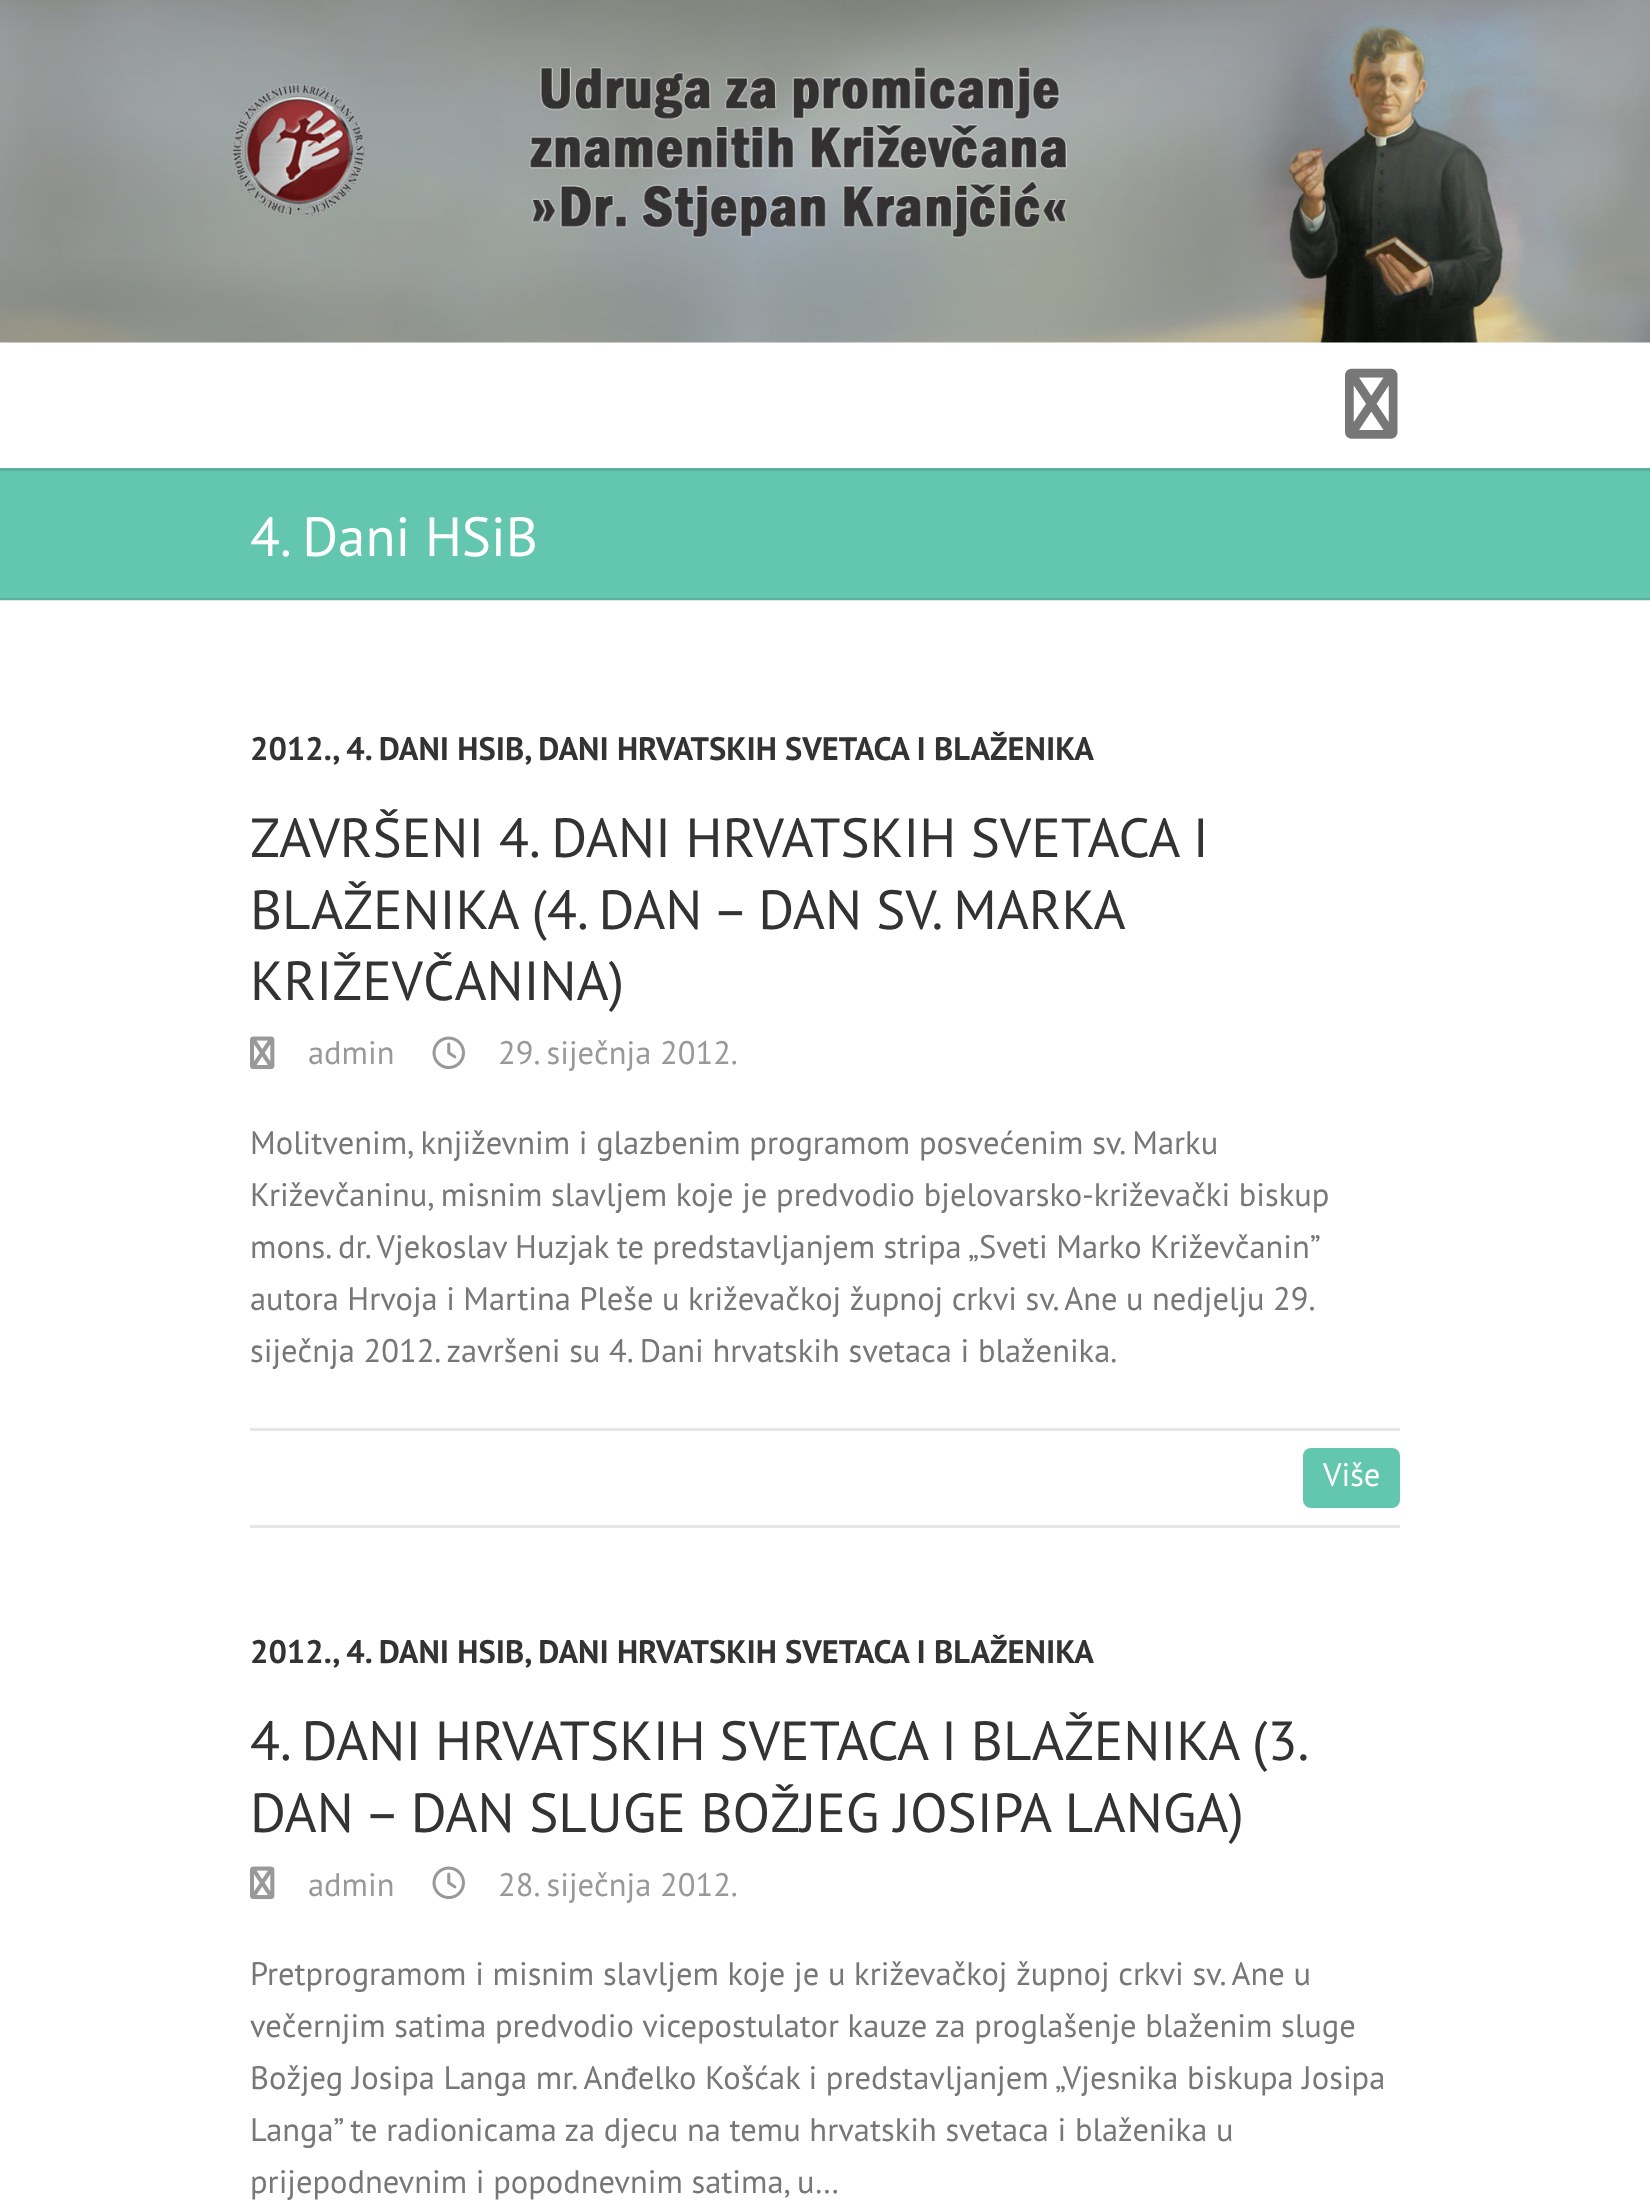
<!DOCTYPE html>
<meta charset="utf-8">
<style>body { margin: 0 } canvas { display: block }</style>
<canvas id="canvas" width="1650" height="2210"></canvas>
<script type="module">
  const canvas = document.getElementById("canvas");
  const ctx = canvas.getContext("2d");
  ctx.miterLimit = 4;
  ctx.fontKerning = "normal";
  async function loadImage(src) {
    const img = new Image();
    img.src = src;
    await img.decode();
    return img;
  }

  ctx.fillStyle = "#ffffff";
  ctx.fillRect(0, 0, 1650, 2210);
  ctx.fillStyle = "#e6e6e6";
  ctx.fillRect(0, 600, 1650, 1);
  ctx.drawImage(await loadImage("img1.png"), 0, 0, 1650, 343);
  ctx.drawImage(await loadImage("img2.png"), 1345, 368, 53, 71);
  ctx.fillStyle = "#63c6ae";
  ctx.fillRect(0, 471, 1650, 127);
  ctx.fillStyle = "#59b29d";
  ctx.fillRect(0, 598, 1650, 2);
  ctx.fillRect(0, 468, 1650, 3);
  ctx.font = "55px PT Sans";
  ctx.fillStyle = "#ffffff";
  ctx.fillText("4. Dani HSiB", 250, 556);
  ctx.font = "bold 32.5px PT Sans";
  ctx.fillStyle = "#333333";
  ctx.fillText("2012., 4. DANI HSIB, DANI HRVATSKIH SVETACA I BLAŽENIKA", 250, 760);
  ctx.font = "55px PT Sans";
  ctx.fillText("ZAVRŠENI 4. DANI HRVATSKIH SVETACA I", 250, 857);
  ctx.wordSpacing = "-0.5px";
  ctx.fillText("BLAŽENIKA (4. DAN – DAN SV. MARKA", 250, 929);
  ctx.wordSpacing = "0px";
  ctx.fillText("KRIŽEVČANINA)", 250, 1000);
  ctx.drawImage(await loadImage("img3.png"), 250, 1036, 25, 34);
  ctx.font = "32.5px PT Sans";
  ctx.fillStyle = "#999999";
  ctx.fillText("admin", 308, 1064);
  ctx.drawImage(await loadImage("img4.png"), 432, 1036, 33, 34);
  ctx.fillText("29. siječnja 2012.", 498, 1064);
  ctx.fillStyle = "#777777";
  ctx.fillText("Molitvenim, književnim i glazbenim programom posvećenim sv. Marku", 250, 1154);
  ctx.fillText("Križevčaninu, misnim slavljem koje je predvodio bjelovarsko-križevački biskup", 250, 1206);
  ctx.wordSpacing = "-0.25px";
  ctx.fillText("mons. dr. Vjekoslav Huzjak te predstavljanjem stripa „Sveti Marko Križevčanin”", 250, 1258);
  ctx.fillText("autora Hrvoja i Martina Pleše u križevačkoj župnoj crkvi sv. Ane u nedjelju 29.", 250, 1310);
  ctx.wordSpacing = "0px";
  ctx.fillText("siječnja 2012. završeni su 4. Dani hrvatskih svetaca i blaženika.", 250, 1362);
  ctx.fillStyle = "#e6e6e6";
  ctx.fillRect(250, 1428, 1150, 3);
  ctx.fillRect(250, 1525, 1150, 3);
  ctx.fillStyle = "#63c6ae";
  ctx.beginPath();
  ctx.roundRect(1303, 1448, 97, 60, 8);
  ctx.fill();
  ctx.fillStyle = "#ffffff";
  ctx.fillText("Više", 1323, 1486);
  ctx.font = "bold 32.5px PT Sans";
  ctx.fillStyle = "#333333";
  ctx.fillText("2012., 4. DANI HSIB, DANI HRVATSKIH SVETACA I BLAŽENIKA", 250, 1663);
  ctx.wordSpacing = "-0.75px";
  ctx.font = "55px PT Sans";
  ctx.fillText("4. DANI HRVATSKIH SVETACA I BLAŽENIKA (3.", 250, 1760);
  ctx.wordSpacing = "0px";
  ctx.fillText("DAN – DAN SLUGE BOŽJEG JOSIPA LANGA)", 250, 1832);
  ctx.drawImage(await loadImage("img3.png"), 250, 1866, 25, 34);
  ctx.font = "32.5px PT Sans";
  ctx.fillStyle = "#999999";
  ctx.fillText("admin", 308, 1896);
  ctx.drawImage(await loadImage("img4.png"), 432, 1866, 33, 34);
  ctx.fillText("28. siječnja 2012.", 498, 1896);
  ctx.fillStyle = "#777777";
  ctx.fillText("Pretprogramom i misnim slavljem koje je u križevačkoj župnoj crkvi sv. Ane u", 250, 1985);
  ctx.fillText("večernjim satima predvodio vicepostulator kauze za proglašenje blaženim sluge", 250, 2037);
  ctx.fillText("Božjeg Josipa Langa mr. Anđelko Košćak i predstavljanjem „Vjesnika biskupa Josipa", 250, 2089);
  ctx.fillText("Langa” te radionicama za djecu na temu hrvatskih svetaca i blaženika u", 250, 2141);
  ctx.fillText("prijepodnevnim i popodnevnim satima, u…", 250, 2193);
</script>
